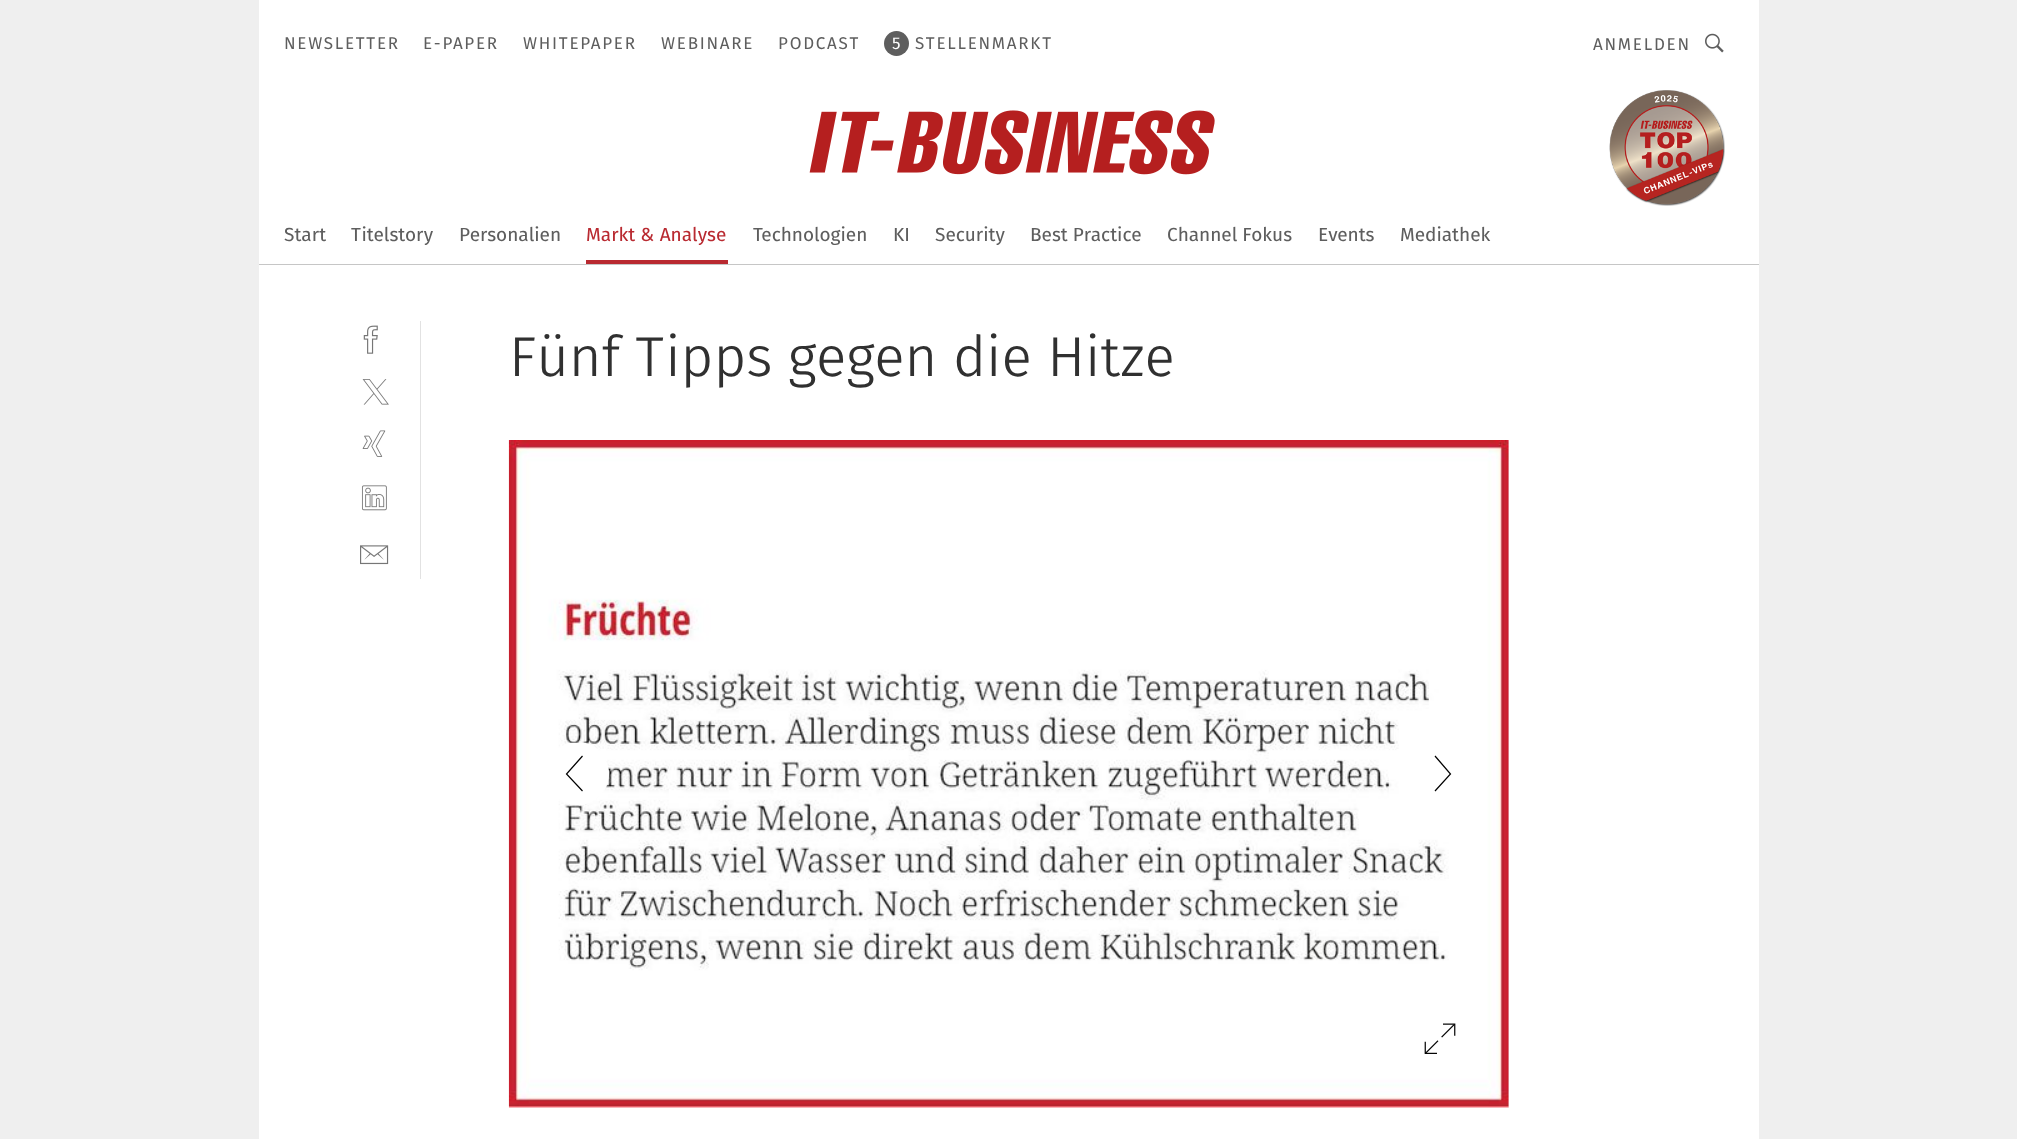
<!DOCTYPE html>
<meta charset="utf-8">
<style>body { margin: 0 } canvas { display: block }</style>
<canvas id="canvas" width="2017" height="1139"></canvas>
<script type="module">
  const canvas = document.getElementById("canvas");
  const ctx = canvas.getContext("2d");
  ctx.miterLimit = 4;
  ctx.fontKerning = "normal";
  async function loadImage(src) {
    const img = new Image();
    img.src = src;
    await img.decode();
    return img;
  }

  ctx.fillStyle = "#efefef";
  ctx.fillRect(0, 0, 2017, 1139);
  ctx.fillStyle = "#ffffff";
  ctx.fillRect(259, 0, 1500, 1139);
  ctx.fillStyle = "#c6c6c6";
  ctx.fillRect(259, 264, 1500, 1);
  ctx.letterSpacing = "1.75px";
  ctx.font = "17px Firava";
  ctx.fillStyle = "#5e5e5e";
  ctx.fillText("NEWSLETTER", 284, 49);
  ctx.fillText("E-PAPER", 423, 49);
  ctx.fillText("WHITEPAPER", 523, 49);
  ctx.fillText("WEBINARE", 661, 49);
  ctx.fillText("PODCAST", 778, 49);
  ctx.beginPath();
  ctx.arc(896.5, 43.5, 12.5, 0, Math.PI * 2);
  ctx.fill();
  ctx.fillStyle = "#ffffff";
  ctx.fillText("5", 892, 49);
  ctx.fillStyle = "#5e5e5e";
  ctx.fillText("STELLENMARKT", 915, 49);
  ctx.fillText("ANMELDEN", 1593, 50);
  ctx.drawImage(await loadImage("img1.png"), 1705, 33, 19, 20);
  ctx.drawImage(await loadImage("img2.png"), 809, 110, 406, 65);
  ctx.drawImage(await loadImage("img3.png"), 1609, 90, 116, 116);
  ctx.letterSpacing = "0px";
  ctx.font = "19px 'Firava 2'";
  ctx.fillText("Start", 284, 241);
  ctx.fillText("Titelstory", 351, 241);
  ctx.fillText("Personalien", 459, 241);
  ctx.fillStyle = "#b92a31";
  ctx.fillRect(586, 260, 142, 4);
  ctx.fillText("Markt & Analyse", 586, 241);
  ctx.fillStyle = "#5e5e5e";
  ctx.fillText("Technologien", 753, 241);
  ctx.fillText("KI", 893, 241);
  ctx.fillText("Security", 935, 241);
  ctx.fillText("Best Practice", 1030, 241);
  ctx.fillText("Channel Fokus", 1167, 241);
  ctx.fillText("Events", 1318, 241);
  ctx.fillText("Mediathek", 1400, 241);
  ctx.fillStyle = "#e2e2e2";
  ctx.fillRect(420, 321, 1, 258);
  ctx.drawImage(await loadImage("img4.png"), 363, 325, 15, 29);
  ctx.drawImage(await loadImage("img5.png"), 362, 379, 27, 26);
  ctx.drawImage(await loadImage("img6.png"), 362, 430, 24, 27);
  ctx.drawImage(await loadImage("img7.png"), 361, 485, 26, 26);
  ctx.drawImage(await loadImage("img8.png"), 360, 545, 29, 20);
  ctx.font = "300 56.25px Firava";
  ctx.fillStyle = "#303030";
  ctx.fillText("Fünf Tipps gegen die Hitze", 509, 376);
  ctx.fillStyle = "#efefef";
  ctx.fillRect(509, 440, 1000, 668);
  ctx.drawImage(await loadImage("img9.png"), 508, 440, 1001, 668);
  ctx.save();
  ctx.beginPath();
  ctx.rect(546, 743, 63, 62);
  ctx.clip();
  ctx.fillStyle = "#ffffff";
  ctx.beginPath();
  ctx.moveTo(578, 805);
  ctx.bezierCurveTo(595, 805, 609, 791, 609, 774);
  ctx.bezierCurveTo(609, 756, 595, 742, 578, 742);
  ctx.bezierCurveTo(560, 742, 546, 756, 546, 774);
  ctx.bezierCurveTo(546, 791, 560, 805, 578, 805);
  ctx.fill();
  ctx.restore();
  ctx.beginPath();
  ctx.moveTo(582.5, 756);
  ctx.lineTo(566.5, 774);
  ctx.lineTo(582.5, 791);
  ctx.strokeStyle = "#000000";
  ctx.lineWidth = 1.2;
  ctx.stroke();
  ctx.beginPath();
  ctx.moveTo(1435, 791);
  ctx.lineTo(1450.5, 774);
  ctx.lineTo(1435, 756);
  ctx.stroke();
  ctx.drawImage(await loadImage("img10.png"), 1424, 1023, 32, 31);
</script>
